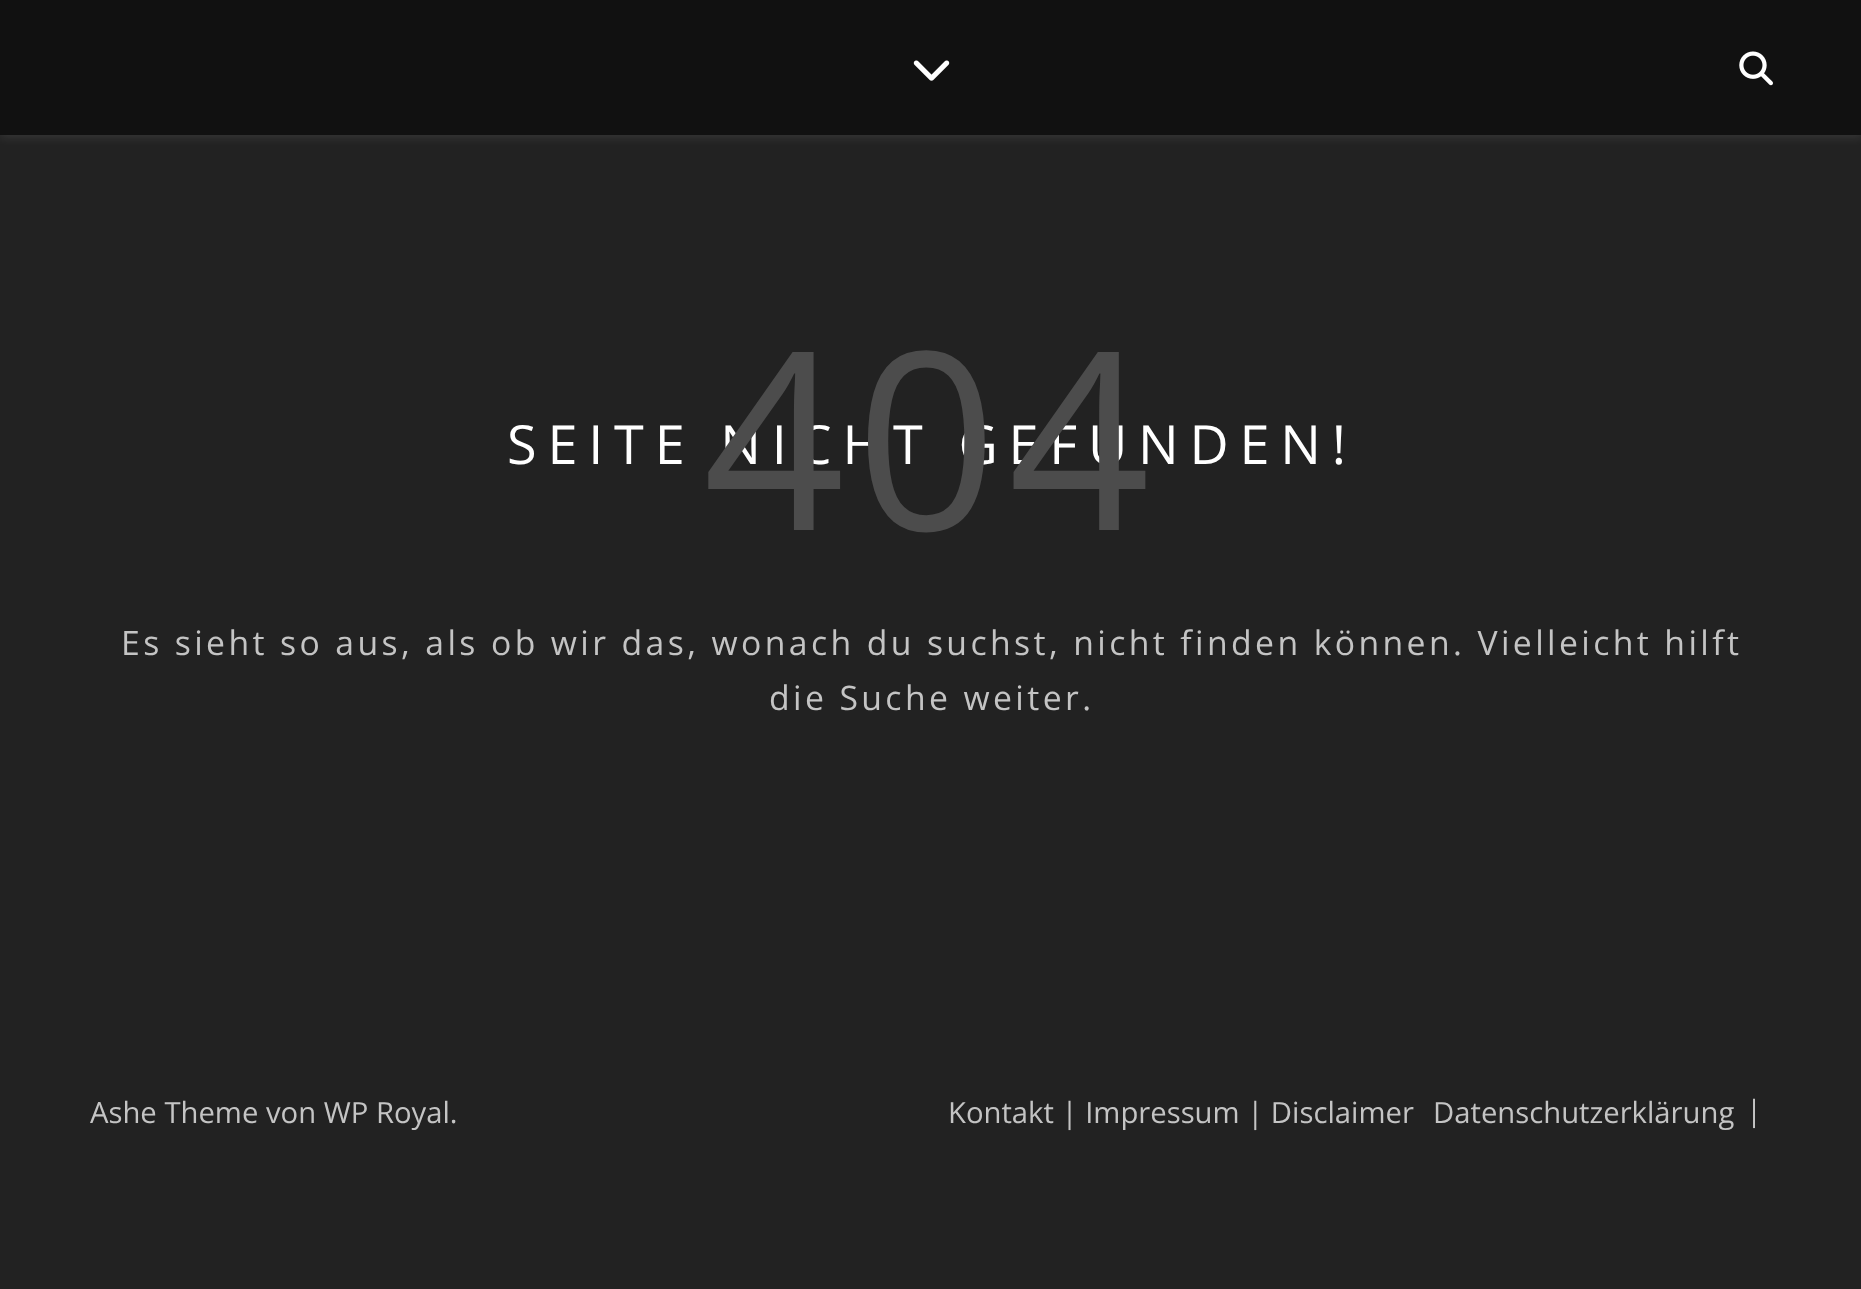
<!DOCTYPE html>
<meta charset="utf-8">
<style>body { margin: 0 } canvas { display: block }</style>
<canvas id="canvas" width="1861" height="1289"></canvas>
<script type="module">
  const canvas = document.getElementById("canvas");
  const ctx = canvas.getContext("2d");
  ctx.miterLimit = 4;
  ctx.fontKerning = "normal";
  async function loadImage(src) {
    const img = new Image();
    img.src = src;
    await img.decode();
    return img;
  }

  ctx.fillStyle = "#222222";
  ctx.fillRect(0, 0, 1861, 1289);
  ctx.fillStyle = "rgba(255, 255, 255, 0.1)";
  ctx.filter = "blur(5.5px)";
  ctx.beginPath();
  ctx.rect(0, 2, 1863, 135);
  ctx.fill();
  ctx.filter = "none";
  ctx.fillStyle = "#111111";
  ctx.fillRect(0, 0, 1861, 135);
  ctx.drawImage(await loadImage("img1.png"), 913, 60, 37, 21);
  ctx.drawImage(await loadImage("img2.png"), 1739, 51, 34, 35);
  ctx.letterSpacing = "10.8px";
  ctx.font = "54px Open Sans";
  ctx.fillStyle = "#ffffff";
  ctx.fillText("SEITE NICHT GEFUNDEN!", 507, 464);
  ctx.font = "248px Open Sans";
  ctx.fillStyle = "#4c4c4c";
  ctx.fillText("404", 703, 530);
  ctx.letterSpacing = "3.38px";
  ctx.font = "33.75px Open Sans";
  ctx.fillStyle = "#c4c4c4";
  ctx.fillText("Es sieht so aus, als ob wir das, wonach du suchst, nicht finden können. Vielleicht hilft", 121, 655);
  ctx.fillText("die Suche weiter.", 769, 710);
  ctx.letterSpacing = "0px";
  ctx.font = "29.25px Open Sans";
  ctx.fillText("Ashe Theme von WP Royal.", 90, 1123);
  ctx.fillText("Kontakt | Impressum | Disclaimer", 948, 1123);
  ctx.fillText("Datenschutzerklärung", 1433, 1123);
  ctx.fillText("|", 1746, 1121);
</script>
